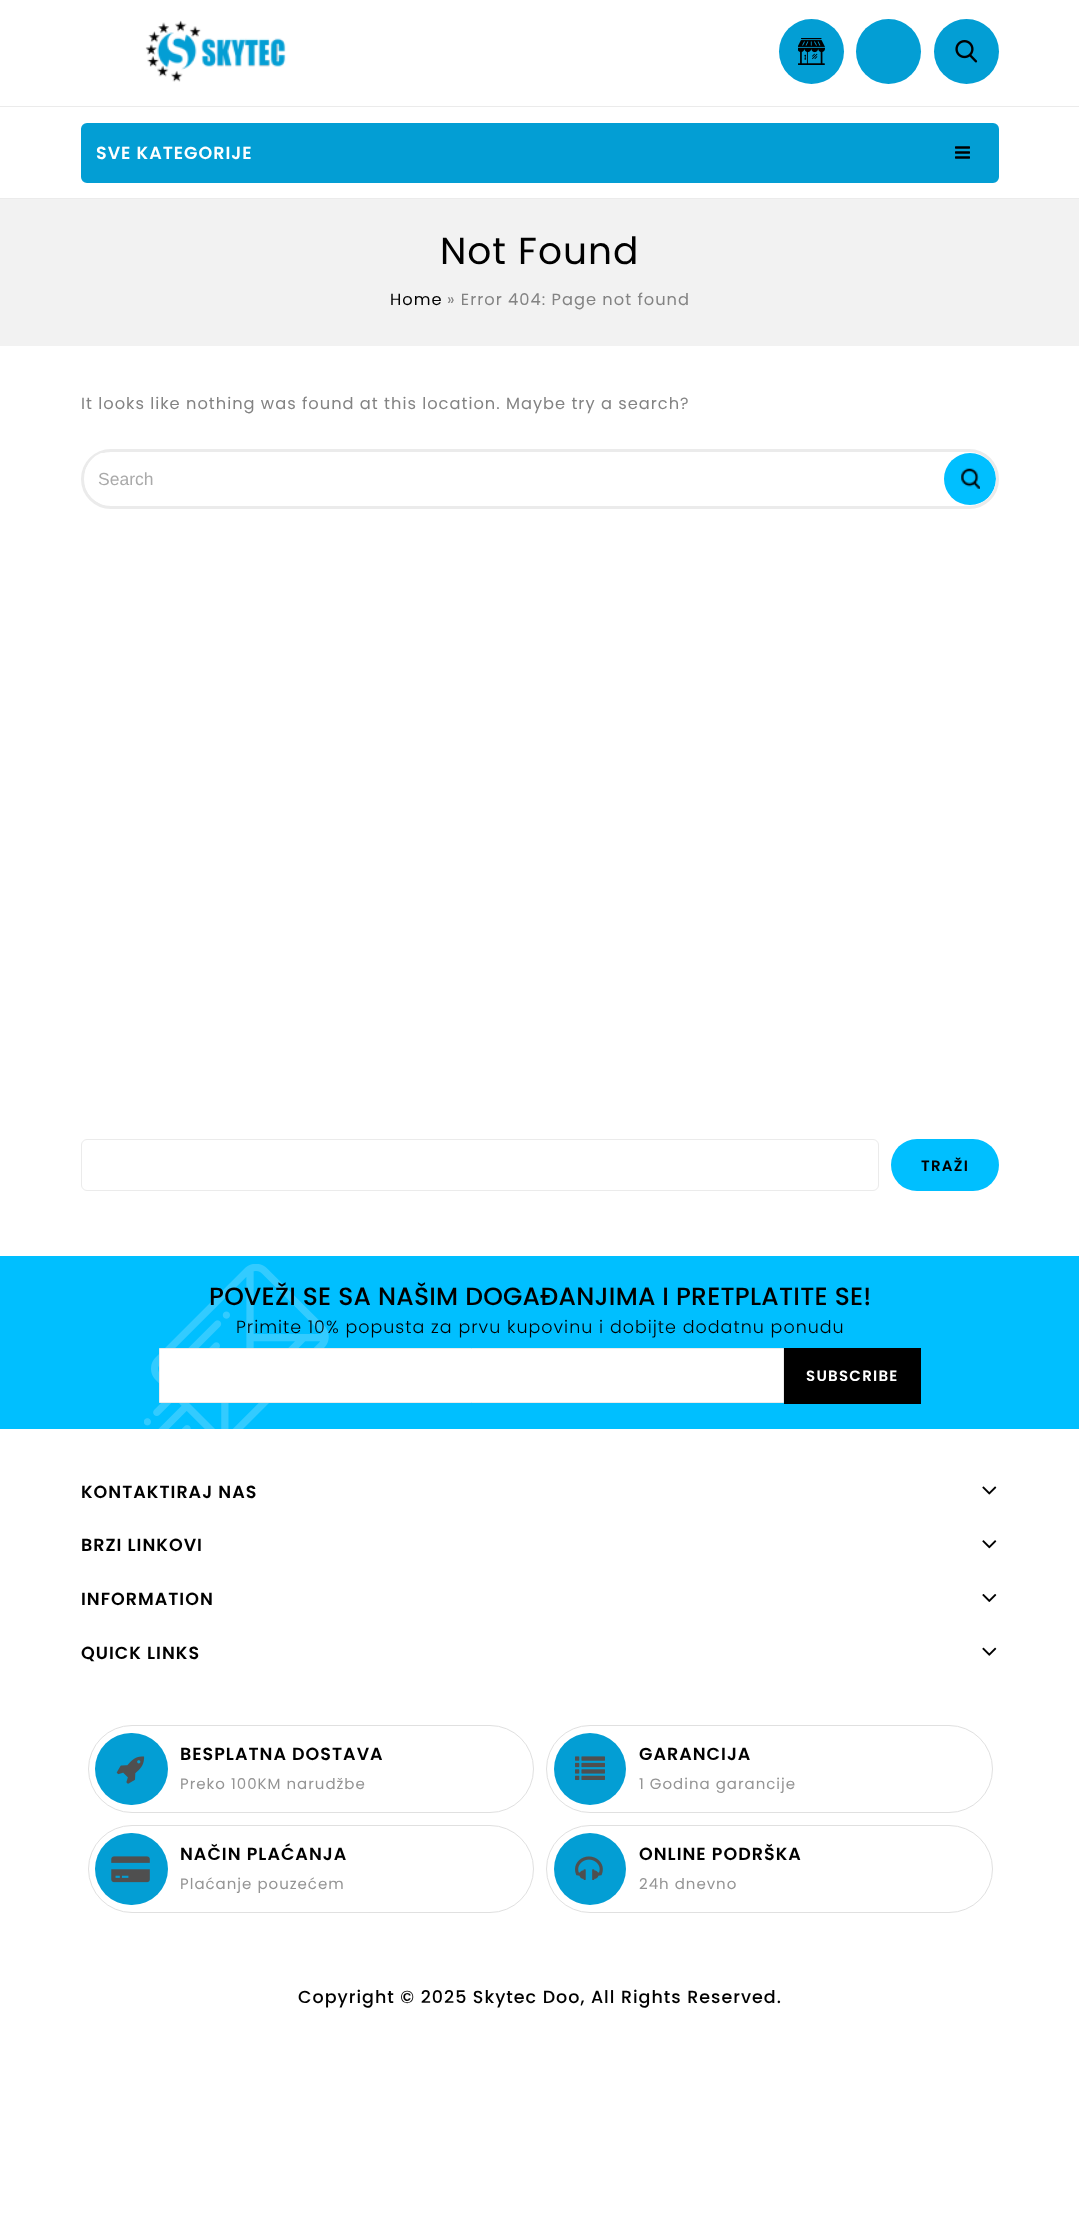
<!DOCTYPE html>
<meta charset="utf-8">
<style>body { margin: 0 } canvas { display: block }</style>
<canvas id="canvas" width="1079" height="2225"></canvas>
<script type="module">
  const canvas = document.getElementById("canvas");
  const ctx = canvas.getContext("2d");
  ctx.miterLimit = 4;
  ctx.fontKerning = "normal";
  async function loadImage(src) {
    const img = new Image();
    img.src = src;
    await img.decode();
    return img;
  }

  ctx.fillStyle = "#ffffff";
  ctx.fillRect(0, 0, 1079, 2225);
  ctx.fillStyle = "#ebebeb";
  ctx.fillRect(0, 106, 1079, 1);
  ctx.drawImage(await loadImage("img1.png"), 145, 20, 141, 62);
  ctx.fillStyle = "#039ed4";
  ctx.beginPath();
  ctx.arc(811.5, 51.5, 32.5, 0, Math.PI * 2);
  ctx.fill();
  ctx.drawImage(await loadImage("img2.png"), 798, 38, 27, 27);
  ctx.beginPath();
  ctx.arc(888.5, 51.5, 32.5, 0, Math.PI * 2);
  ctx.fill();
  ctx.beginPath();
  ctx.arc(966.5, 51.5, 32.5, 0, Math.PI * 2);
  ctx.fill();
  ctx.drawImage(await loadImage("img3.png"), 955, 40, 23, 23);
  ctx.fillStyle = "#ebebeb";
  ctx.fillRect(0, 198, 1079, 1);
  ctx.fillStyle = "#039ed4";
  ctx.beginPath();
  ctx.roundRect(82.5, 124.5, 915, 57, 4.5);
  ctx.fill();
  ctx.strokeStyle = "#039ed4";
  ctx.lineWidth = 3;
  ctx.stroke();
  ctx.letterSpacing = "1px";
  ctx.font = "600 17.5px Poppins";
  ctx.fillStyle = "#ffffff";
  ctx.fillText("SVE KATEGORIJE", 96, 159);
  ctx.drawImage(await loadImage("img4.png"), 955, 146, 15, 13);
  ctx.fillStyle = "#f2f2f2";
  ctx.fillRect(0, 199, 1079, 147);
  ctx.font = "37.5px Poppins";
  ctx.fillStyle = "#000000";
  ctx.fillText("Not Found", 440, 264);
  ctx.font = "16.25px Poppins";
  ctx.fillText("Home", 390, 305);
  ctx.fillStyle = "#838383";
  ctx.fillText("» Error 404: Page not found", 447, 305);
  ctx.fillText("It looks like nothing was found at this location. Maybe try a search?", 81, 409);
  ctx.beginPath();
  ctx.roundRect(82.5, 450.5, 915, 57, 28.5);
  ctx.strokeStyle = "#ebebeb";
  ctx.stroke();
  ctx.save();
  ctx.beginPath();
  ctx.roundRect(84, 451, 912, 55, 27.5);
  ctx.clip();
  ctx.fillStyle = "#ffffff";
  ctx.beginPath();
  ctx.roundRect(85, 453, 855, 52, 6);
  ctx.fill();
  ctx.restore();
  ctx.letterSpacing = "0px";
  ctx.font = "17.5px Liberation Sans";
  ctx.fillStyle = "#aaaaaa";
  ctx.fillText("Search", 98, 485);
  ctx.save();
  ctx.beginPath();
  ctx.roundRect(84, 451, 912, 55, 27.5);
  ctx.clip();
  ctx.fillStyle = "#00bfff";
  ctx.beginPath();
  ctx.arc(970, 479, 26, 0, Math.PI * 2);
  ctx.fill();
  ctx.restore();
  ctx.drawImage(await loadImage("img5.png"), 961, 468, 19, 21);
  ctx.beginPath();
  ctx.roundRect(81.5, 1139.5, 797, 51, 5.5);
  ctx.lineWidth = 1;
  ctx.stroke();
  ctx.fillStyle = "#00bfff";
  ctx.beginPath();
  ctx.roundRect(891, 1139, 108, 52, 26);
  ctx.fill();
  ctx.letterSpacing = "1.25px";
  ctx.font = "600 15px Poppins";
  ctx.fillStyle = "#000000";
  ctx.fillText("TRAŽI", 921, 1171);
  ctx.fillStyle = "#00bfff";
  ctx.fillRect(0, 1256, 1079, 173);
  ctx.drawImage(await loadImage("img6.png"), 144, 1264, 185, 165);
  ctx.letterSpacing = "0.25px";
  ctx.font = "500 25px Poppins";
  ctx.fillStyle = "#000000";
  ctx.fillText("POVEŽI SE SA NAŠIM DOGAĐANJIMA I PRETPLATITE SE!", 209, 1305);
  ctx.letterSpacing = "1px";
  ctx.font = "300 17.5px Poppins";
  ctx.fillText("Primite 10% popusta za prvu kupovinu i dobijte dodatnu ponudu", 236, 1333);
  ctx.fillStyle = "#ffffff";
  ctx.beginPath();
  ctx.rect(159.5, 1348.5, 624, 54);
  ctx.fill();
  ctx.stroke();
  ctx.fillStyle = "#000000";
  ctx.fillRect(784, 1348, 137, 56);
  ctx.letterSpacing = "1.25px";
  ctx.font = "600 15px Poppins";
  ctx.fillStyle = "#ffffff";
  ctx.fillText("SUBSCRIBE", 806, 1381);
  ctx.letterSpacing = "1px";
  ctx.font = "600 17.5px Poppins";
  ctx.fillStyle = "#000000";
  ctx.fillText("KONTAKTIRAJ NAS", 81, 1498);
  ctx.drawImage(await loadImage("img7.png"), 982, 1486, 15, 9);
  ctx.fillText("BRZI LINKOVI", 81, 1551);
  ctx.drawImage(await loadImage("img8.png"), 982, 1540, 15, 9);
  ctx.fillText("INFORMATION", 81, 1605);
  ctx.drawImage(await loadImage("img9.png"), 982, 1594, 15, 8);
  ctx.fillText("QUICK LINKS", 81, 1659);
  ctx.drawImage(await loadImage("img10.png"), 982, 1647, 15, 9);
  ctx.beginPath();
  ctx.roundRect(88.5, 1725.5, 445, 87, 43.5);
  ctx.strokeStyle = "#e0e0e0";
  ctx.stroke();
  ctx.fillStyle = "#039ed4";
  ctx.beginPath();
  ctx.roundRect(95, 1733, 73, 72, 36);
  ctx.fill();
  ctx.drawImage(await loadImage("img11.png"), 116, 1756, 29, 28);
  ctx.fillStyle = "#000000";
  ctx.fillText("BESPLATNA DOSTAVA", 180, 1760);
  ctx.font = "15px Poppins";
  ctx.fillStyle = "#949494";
  ctx.fillText("Preko 100KM narudžbe", 180, 1789);
  ctx.beginPath();
  ctx.roundRect(546.5, 1725.5, 446, 87, 43.5);
  ctx.stroke();
  ctx.fillStyle = "#039ed4";
  ctx.beginPath();
  ctx.arc(590, 1769, 36, 0, Math.PI * 2);
  ctx.fill();
  ctx.drawImage(await loadImage("img12.png"), 575, 1756, 30, 24);
  ctx.font = "600 17.5px Poppins";
  ctx.fillStyle = "#000000";
  ctx.fillText("GARANCIJA", 639, 1760);
  ctx.font = "15px Poppins";
  ctx.fillStyle = "#949494";
  ctx.fillText("1 Godina garancije", 639, 1789);
  ctx.beginPath();
  ctx.roundRect(88.5, 1825.5, 445, 87, 43.5);
  ctx.stroke();
  ctx.fillStyle = "#039ed4";
  ctx.beginPath();
  ctx.roundRect(95, 1833, 73, 72, 36);
  ctx.fill();
  ctx.drawImage(await loadImage("img13.png"), 111, 1856, 39, 27);
  ctx.font = "600 17.5px Poppins";
  ctx.fillStyle = "#000000";
  ctx.fillText("NAČIN PLAĆANJA", 180, 1860);
  ctx.font = "15px Poppins";
  ctx.fillStyle = "#949494";
  ctx.fillText("Plaćanje pouzećem", 180, 1889);
  ctx.beginPath();
  ctx.roundRect(546.5, 1825.5, 446, 87, 43.5);
  ctx.stroke();
  ctx.fillStyle = "#039ed4";
  ctx.beginPath();
  ctx.arc(590, 1869, 36, 0, Math.PI * 2);
  ctx.fill();
  ctx.drawImage(await loadImage("img14.png"), 575, 1856, 28, 24);
  ctx.font = "600 17.5px Poppins";
  ctx.fillStyle = "#000000";
  ctx.fillText("ONLINE PODRŠKA", 639, 1860);
  ctx.font = "15px Poppins";
  ctx.fillStyle = "#949494";
  ctx.fillText("24h dnevno", 639, 1889);
  ctx.font = "500 17.5px Poppins";
  ctx.fillStyle = "#000000";
  ctx.fillText("Copyright © 2025 Skytec Doo, All Rights Reserved.", 298, 2003);
</script>
